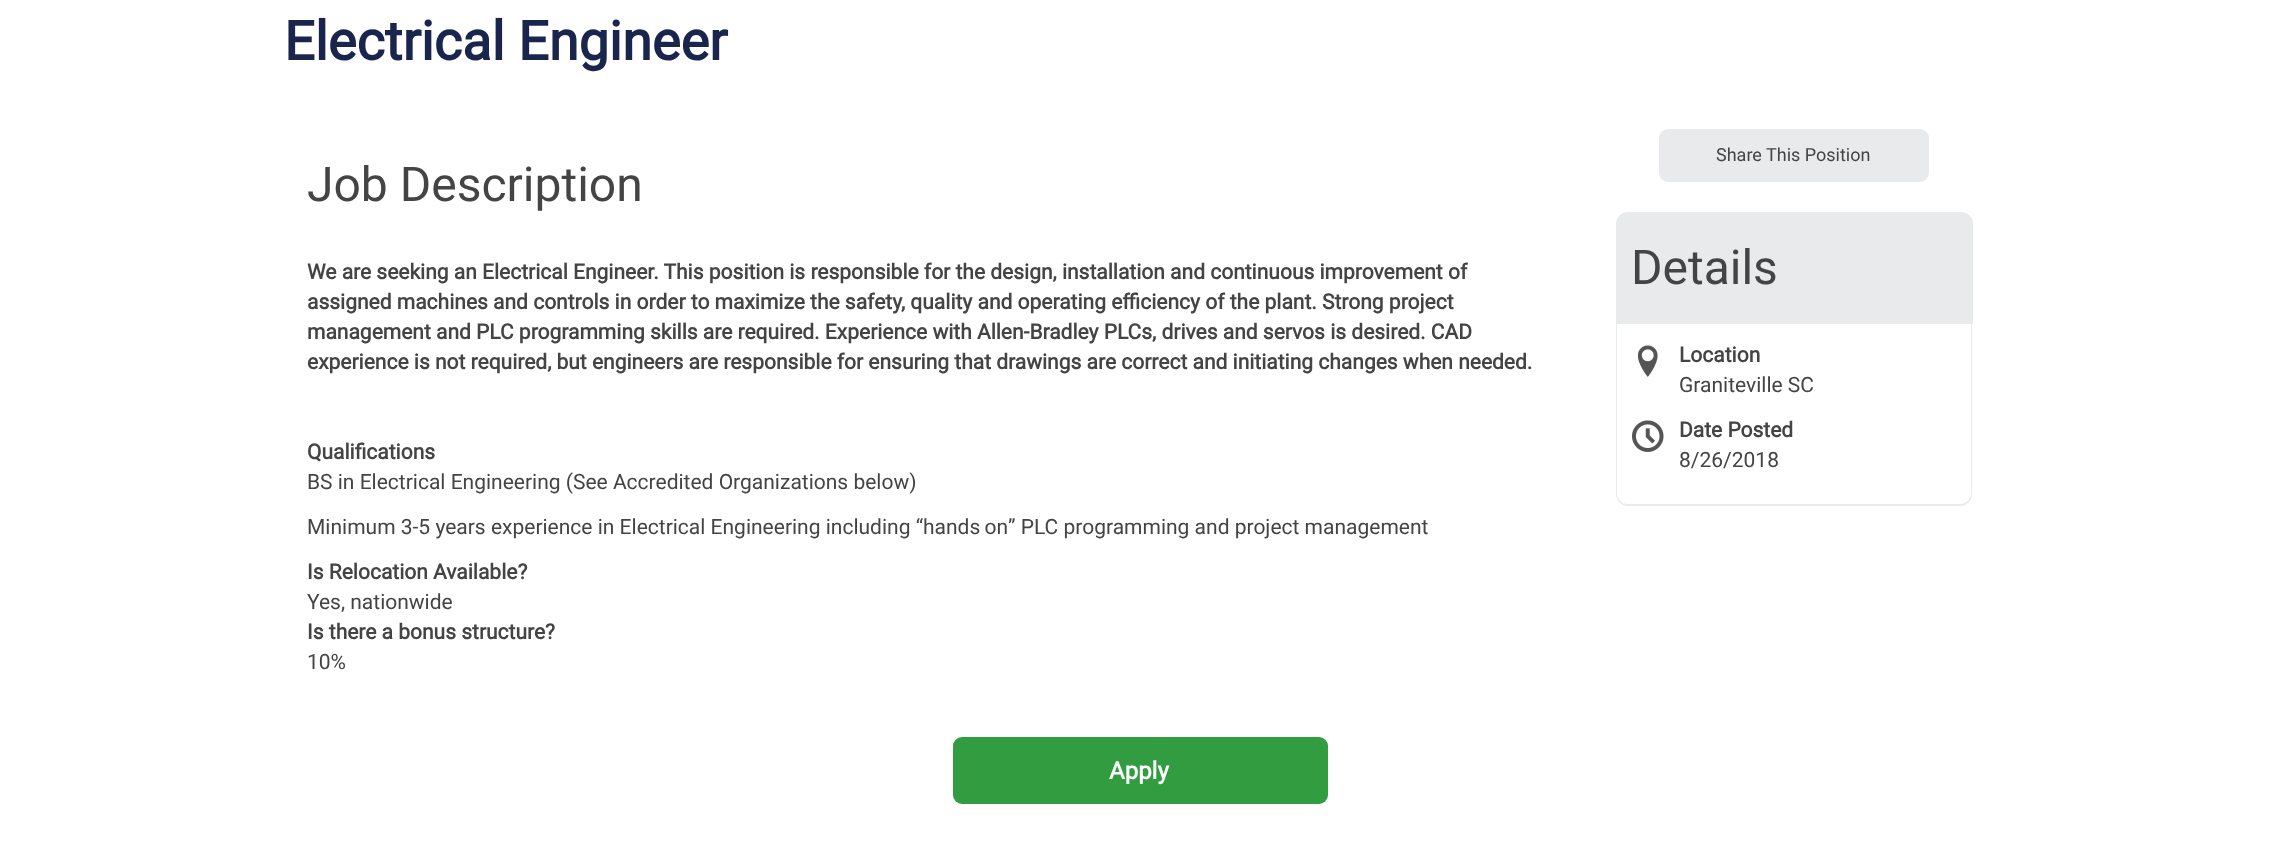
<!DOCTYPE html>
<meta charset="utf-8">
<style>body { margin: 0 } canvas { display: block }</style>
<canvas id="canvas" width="2293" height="848"></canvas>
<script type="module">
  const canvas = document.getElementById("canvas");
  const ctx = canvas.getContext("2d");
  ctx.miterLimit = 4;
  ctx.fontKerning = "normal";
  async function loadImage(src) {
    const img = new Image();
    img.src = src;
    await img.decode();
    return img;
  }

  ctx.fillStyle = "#ffffff";
  ctx.fillRect(0, 0, 2293, 848);
  ctx.font = "bold 54px Roboto";
  ctx.fillStyle = "#19254c";
  ctx.fillText("Electrical Engineer", 284, 60);
  ctx.font = "48px Roboto";
  ctx.fillStyle = "#444444";
  ctx.fillText("Job Description", 307, 201);
  ctx.font = "bold 21px Roboto";
  ctx.fillText("We are seeking an Electrical Engineer. This position is responsible for the design, installation and continuous improvement of", 307, 279);
  ctx.fillText("assigned machines and controls in order to maximize the safety, quality and operating efficiency of the plant. Strong project", 307, 309);
  ctx.fillText("management and PLC programming skills are required. Experience with Allen-Bradley PLCs, drives and servos is desired. CAD", 307, 339);
  ctx.fillText("experience is not required, but engineers are responsible for ensuring that drawings are correct and initiating changes when needed.", 307, 369);
  ctx.fillText("Qualifications", 307, 459);
  ctx.font = "21px Roboto";
  ctx.fillText("BS in Electrical Engineering (See Accredited Organizations below)", 307, 489);
  ctx.fillText("Minimum 3-5 years experience in Electrical Engineering including “", 307, 534);
  ctx.wordSpacing = "-1px";
  ctx.fillText("hands on", 923, 534);
  ctx.wordSpacing = "0px";
  ctx.fillText("” PLC programming and project management", 1008, 534);
  ctx.font = "bold 21px Roboto";
  ctx.fillText("Is Relocation Available?", 307, 579);
  ctx.font = "21px Roboto";
  ctx.fillText("Yes, nationwide", 307, 609);
  ctx.font = "bold 21px Roboto";
  ctx.fillText("Is there a bonus structure?", 307, 639);
  ctx.font = "21px Roboto";
  ctx.fillText("10%", 307, 669);
  ctx.fillStyle = "#e8eaeb";
  ctx.beginPath();
  ctx.roundRect(1659, 129, 270, 53, 9);
  ctx.fill();
  ctx.font = "18px Roboto";
  ctx.fillStyle = "#444444";
  ctx.fillText("Share This Position", 1716, 161);
  ctx.fillStyle = "#e8eaeb";
  ctx.beginPath();
  ctx.roundRect(1616, 212, 357, 112, [12, 12, 0, 0]);
  ctx.fill();
  ctx.font = "48px Roboto";
  ctx.fillStyle = "#444444";
  ctx.fillText("Details", 1631, 284);
  ctx.fillStyle = "#e8eaeb";
  ctx.beginPath();
  ctx.moveTo(1616, 324);
  ctx.lineTo(1972, 324);
  ctx.lineTo(1972, 494);
  ctx.bezierCurveTo(1972, 500, 1967, 506, 1960, 506);
  ctx.lineTo(1628, 506);
  ctx.bezierCurveTo(1621, 506, 1616, 500, 1616, 494);
  ctx.closePath();
  ctx.moveTo(1617, 324);
  ctx.lineTo(1971, 324);
  ctx.lineTo(1971, 494);
  ctx.bezierCurveTo(1971, 499, 1966, 504, 1960, 504);
  ctx.lineTo(1628, 504);
  ctx.bezierCurveTo(1622, 504, 1617, 499, 1617, 494);
  ctx.closePath();
  ctx.fill("evenodd");
  ctx.drawImage(await loadImage("img1.png"), 1637, 345, 21, 32);
  ctx.font = "bold 21px Roboto";
  ctx.fillStyle = "#444444";
  ctx.fillText("Location", 1679, 362);
  ctx.font = "21px Roboto";
  ctx.fillText("Graniteville SC", 1679, 392);
  ctx.drawImage(await loadImage("img2.png"), 1632, 420, 32, 32);
  ctx.font = "bold 21px Roboto";
  ctx.fillText("Date Posted", 1679, 437);
  ctx.font = "21px Roboto";
  ctx.fillText("8/26/2018", 1679, 467);
  ctx.fillStyle = "#329d40";
  ctx.beginPath();
  ctx.roundRect(953, 737, 375, 67, 9);
  ctx.fill();
  ctx.font = "bold 24px Roboto";
  ctx.fillStyle = "#ffffff";
  ctx.fillText("Apply", 1109, 779);
</script>
